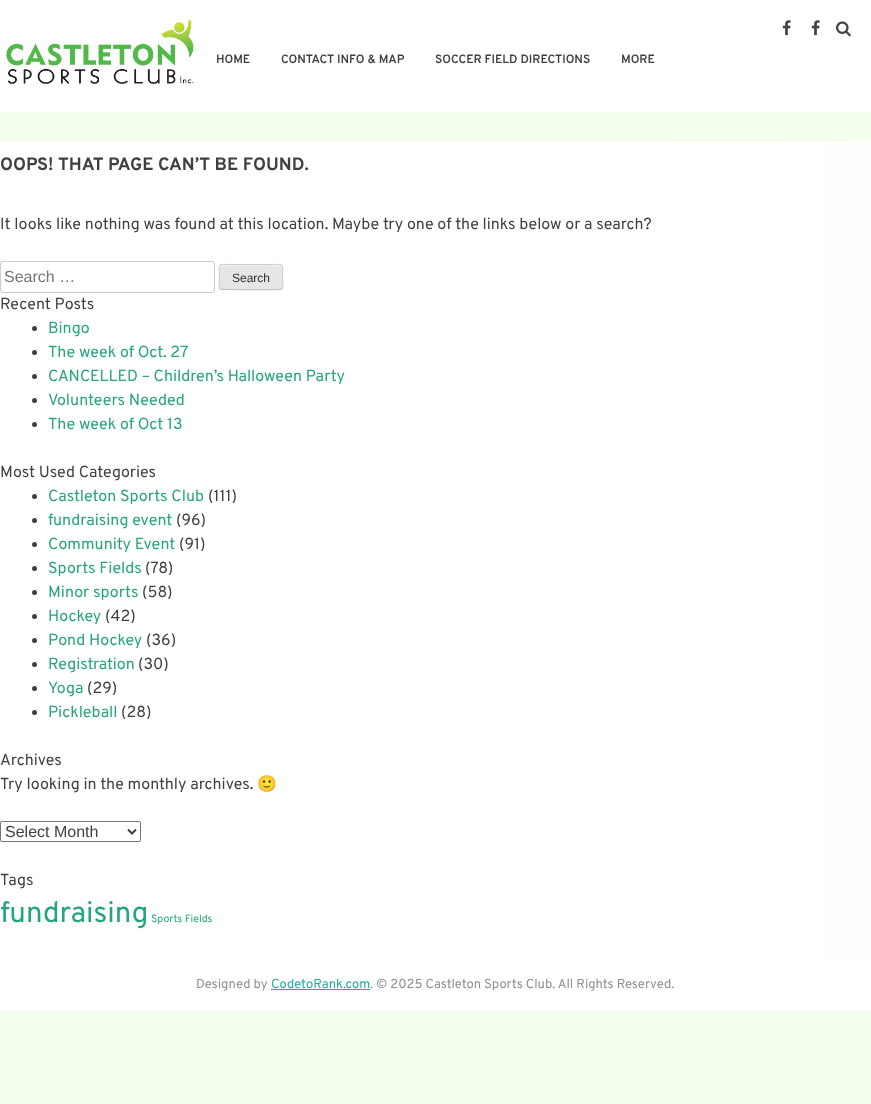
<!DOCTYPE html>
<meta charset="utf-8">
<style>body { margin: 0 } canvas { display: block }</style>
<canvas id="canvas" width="871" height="1104"></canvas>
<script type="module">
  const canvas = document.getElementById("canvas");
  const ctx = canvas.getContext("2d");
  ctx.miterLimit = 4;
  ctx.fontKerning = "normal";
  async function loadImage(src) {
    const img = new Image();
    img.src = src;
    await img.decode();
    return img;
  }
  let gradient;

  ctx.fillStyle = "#f4ffef";
  ctx.fillRect(0, 0, 871, 1104);
  ctx.fillStyle = "#ffffff";
  ctx.fillRect(0, 0, 871, 112);
  ctx.drawImage(await loadImage("img1.png"), 6, 20, 188, 64);
  ctx.drawImage(await loadImage("img2.png"), 782, 20, 9, 16);
  ctx.drawImage(await loadImage("img2.png"), 811, 20, 9, 16);
  ctx.drawImage(await loadImage("img3.png"), 836, 21, 15, 16);
  ctx.font = "600 12px Overpass";
  ctx.fillStyle = "#404040";
  ctx.fillText("HOME", 216, 63);
  ctx.fillText("CONTACT INFO & MAP", 281, 63);
  ctx.fillText("SOCCER FIELD DIRECTIONS", 435, 63);
  ctx.fillText("MORE", 621, 63);
  gradient = ctx.createLinearGradient(0, 552, 871, 552);
  gradient.addColorStop(0, "#ffffff");
  gradient.addColorStop(0.5, "#ffffff");
  gradient.addColorStop(1, "#fefffd");
  ctx.fillStyle = gradient;
  ctx.fillRect(0, 142, 871, 819);
  ctx.font = "bold 18px Overpass";
  ctx.fillStyle = "#404040";
  ctx.fillText("OOPS! THAT PAGE CAN’T BE FOUND.", 0, 170);
  ctx.font = "16px Overpass";
  ctx.fillText("It looks like nothing was found at this location. Maybe try one of the links below or a search?", 0, 229);
  ctx.beginPath();
  ctx.roundRect(0.5, 261.5, 214, 31, 2.5);
  ctx.strokeStyle = "#cccccc";
  ctx.stroke();
  ctx.font = "16px Liberation Sans";
  ctx.fillStyle = "#757575";
  ctx.fillText("Search …", 4, 282);
  ctx.fillStyle = "#e6e6e6";
  ctx.beginPath();
  ctx.roundRect(219, 264, 64, 26, 3);
  ctx.fill();
  ctx.fillStyle = "#f3f3f3";
  ctx.beginPath();
  ctx.moveTo(222, 266);
  ctx.lineTo(280, 266);
  ctx.bezierCurveTo(281, 266, 282, 267, 282, 268);
  ctx.bezierCurveTo(282, 262, 274, 265, 270, 265);
  ctx.lineTo(232, 265);
  ctx.bezierCurveTo(228, 265, 220, 262, 220, 268);
  ctx.bezierCurveTo(220, 267, 221, 266, 222, 266);
  ctx.closePath();
  ctx.fill();
  ctx.beginPath();
  ctx.moveTo(282, 289);
  ctx.lineTo(280, 289.5);
  ctx.bezierCurveTo(275, 290, 221.5, 290, 220.5, 289);
  ctx.lineTo(220, 289);
  ctx.strokeStyle = "#bbbbbb";
  ctx.stroke();
  ctx.beginPath();
  ctx.moveTo(220, 289);
  ctx.bezierCurveTo(218.5, 287, 219.5, 279.5, 219.5, 277);
  ctx.bezierCurveTo(219.5, 262.5, 217, 264.5, 231.5, 264.5);
  ctx.lineTo(270.5, 264.5);
  ctx.bezierCurveTo(285, 264.5, 282.5, 262.5, 282.5, 277);
  ctx.bezierCurveTo(282.5, 279.5, 283.5, 287, 282, 289);
  ctx.strokeStyle = "#cccccc";
  ctx.stroke();
  ctx.font = "12px Liberation Sans";
  ctx.fillStyle = "#2e2e2e";
  ctx.fillText("Search", 232, 282);
  ctx.font = "16px Overpass";
  ctx.fillStyle = "#404040";
  ctx.fillText("Recent Posts", 0, 309);
  ctx.beginPath();
  ctx.arc(34.5, 328.5, 2.5, 0, Math.PI * 2);
  ctx.fill();
  ctx.fillStyle = "#24a57c";
  ctx.fillText("Bingo", 48, 333);
  ctx.fillStyle = "#404040";
  ctx.beginPath();
  ctx.arc(34.5, 352.5, 2.5, 0, Math.PI * 2);
  ctx.fill();
  ctx.fillStyle = "#24a57c";
  ctx.fillText("The week of Oct. 27", 48, 357);
  ctx.fillStyle = "#404040";
  ctx.beginPath();
  ctx.arc(34.5, 376.5, 2.5, 0, Math.PI * 2);
  ctx.fill();
  ctx.fillStyle = "#24a57c";
  ctx.fillText("CANCELLED – Children’s Halloween Party", 48, 381);
  ctx.fillStyle = "#404040";
  ctx.beginPath();
  ctx.arc(34.5, 400.5, 2.5, 0, Math.PI * 2);
  ctx.fill();
  ctx.fillStyle = "#24a57c";
  ctx.fillText("Volunteers Needed", 48, 405);
  ctx.fillStyle = "#404040";
  ctx.beginPath();
  ctx.arc(34.5, 424.5, 2.5, 0, Math.PI * 2);
  ctx.fill();
  ctx.fillStyle = "#24a57c";
  ctx.fillText("The week of Oct 13", 48, 429);
  ctx.fillStyle = "#404040";
  ctx.fillText("Most Used Categories", 0, 477);
  ctx.beginPath();
  ctx.arc(34.5, 496.5, 2.5, 0, Math.PI * 2);
  ctx.fill();
  ctx.fillStyle = "#24a57c";
  ctx.fillText("Castleton Sports Club", 48, 501);
  ctx.fillStyle = "#404040";
  ctx.fillText("(111)", 208, 501);
  ctx.beginPath();
  ctx.arc(34.5, 520.5, 2.5, 0, Math.PI * 2);
  ctx.fill();
  ctx.fillStyle = "#24a57c";
  ctx.fillText("fundraising event", 48, 525);
  ctx.fillStyle = "#404040";
  ctx.fillText("(96)", 176, 525);
  ctx.beginPath();
  ctx.arc(34.5, 544.5, 2.5, 0, Math.PI * 2);
  ctx.fill();
  ctx.fillStyle = "#24a57c";
  ctx.fillText("Community Event", 48, 549);
  ctx.fillStyle = "#404040";
  ctx.fillText("(91)", 179, 549);
  ctx.beginPath();
  ctx.arc(34.5, 568.5, 2.5, 0, Math.PI * 2);
  ctx.fill();
  ctx.fillStyle = "#24a57c";
  ctx.fillText("Sports Fields", 48, 573);
  ctx.fillStyle = "#404040";
  ctx.fillText("(78)", 145, 573);
  ctx.beginPath();
  ctx.arc(34.5, 592.5, 2.5, 0, Math.PI * 2);
  ctx.fill();
  ctx.fillStyle = "#24a57c";
  ctx.fillText("Minor sports", 48, 597);
  ctx.fillStyle = "#404040";
  ctx.fillText("(58)", 142, 597);
  ctx.beginPath();
  ctx.arc(34.5, 616.5, 2.5, 0, Math.PI * 2);
  ctx.fill();
  ctx.fillStyle = "#24a57c";
  ctx.fillText("Hockey", 48, 621);
  ctx.fillStyle = "#404040";
  ctx.fillText("(42)", 105, 621);
  ctx.beginPath();
  ctx.arc(34.5, 640.5, 2.5, 0, Math.PI * 2);
  ctx.fill();
  ctx.fillStyle = "#24a57c";
  ctx.fillText("Pond Hockey", 48, 645);
  ctx.fillStyle = "#404040";
  ctx.fillText("(36)", 146, 645);
  ctx.beginPath();
  ctx.arc(34.5, 664.5, 2.5, 0, Math.PI * 2);
  ctx.fill();
  ctx.fillStyle = "#24a57c";
  ctx.fillText("Registration", 48, 669);
  ctx.fillStyle = "#404040";
  ctx.fillText("(30)", 138, 669);
  ctx.beginPath();
  ctx.arc(34.5, 688.5, 2.5, 0, Math.PI * 2);
  ctx.fill();
  ctx.fillStyle = "#24a57c";
  ctx.fillText("Yoga", 48, 693);
  ctx.fillStyle = "#404040";
  ctx.fillText("(29)", 87, 693);
  ctx.beginPath();
  ctx.arc(34.5, 712.5, 2.5, 0, Math.PI * 2);
  ctx.fill();
  ctx.fillStyle = "#24a57c";
  ctx.fillText("Pickleball", 48, 717);
  ctx.fillStyle = "#404040";
  ctx.fillText("(28)", 121, 717);
  ctx.fillText("Archives", 0, 765);
  ctx.fillText("Try looking in the monthly archives.", 0, 789);
  ctx.font = "16px Noto Color Emoji";
  ctx.fillText("🙂", 257, 789);
  ctx.beginPath();
  ctx.roundRect(0.5, 821.5, 140, 20, 1.5);
  ctx.strokeStyle = "#767676";
  ctx.stroke();
  ctx.beginPath();
  ctx.moveTo(128, 829.5);
  ctx.lineTo(132, 833.5);
  ctx.lineTo(136, 829.5);
  ctx.strokeStyle = "#404040";
  ctx.lineWidth = 2;
  ctx.stroke();
  ctx.font = "16px Liberation Sans";
  ctx.fillText("Select Month", 5, 837);
  ctx.font = "16px Overpass";
  ctx.fillText("Tags", 0, 885);
  ctx.font = "29.5px Overpass";
  ctx.fillStyle = "#24a57c";
  ctx.fillText("fundraising", 0, 922);
  ctx.font = "10.5px Overpass";
  ctx.fillText("Sports Fields", 151, 922);
  ctx.fillStyle = "#fefffe";
  ctx.fillRect(0, 961, 871, 49);
  ctx.font = "13px Overpass";
  ctx.fillStyle = "#8e8f8e";
  ctx.fillText("Designed by", 196, 988);
  ctx.fillStyle = "#22aaa1";
  ctx.fillText("CodetoRank.com", 271, 988);
  ctx.fillRect(271, 989, 99, 1);
  ctx.fillStyle = "#8e8f8e";
  ctx.fillText(". © 2025 Castleton Sports Club. All Rights Reserved.", 370, 988);
</script>
